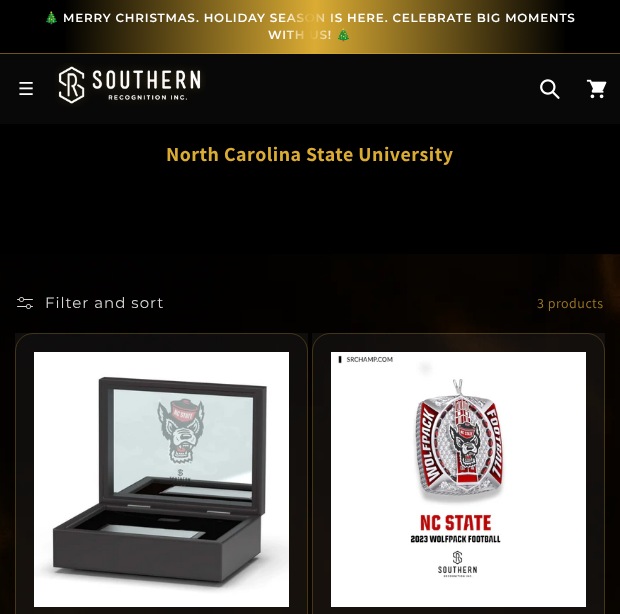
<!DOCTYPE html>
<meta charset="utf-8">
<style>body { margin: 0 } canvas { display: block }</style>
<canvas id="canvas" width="620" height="614"></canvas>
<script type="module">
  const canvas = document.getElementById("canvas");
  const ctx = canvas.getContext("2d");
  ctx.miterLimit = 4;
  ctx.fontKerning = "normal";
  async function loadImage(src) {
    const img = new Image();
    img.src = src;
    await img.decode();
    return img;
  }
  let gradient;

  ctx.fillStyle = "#000000";
  ctx.fillRect(0, 0, 620, 614);
  gradient = ctx.createLinearGradient(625, 313, -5.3, 301);
  gradient.addColorStop(0.1, "#000000");
  gradient.addColorStop(0.5, "#dbac34");
  gradient.addColorStop(0.9, "#000000");
  ctx.fillStyle = gradient;
  ctx.fillRect(65, 0, 500, 53);
  gradient = ctx.createLinearGradient(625, 313, -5.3, 301);
  gradient.addColorStop(0.1, "#6e561a");
  gradient.addColorStop(0.5, "#dbac34");
  gradient.addColorStop(0.9, "#6e561a");
  ctx.fillStyle = gradient;
  ctx.fillRect(0, 53, 620, 1);
  ctx.letterSpacing = "0.8px";
  ctx.font = "bold 11.9px Noto Color Emoji";
  gradient = ctx.createLinearGradient(44, 26, 576, 26);
  gradient.addColorStop(0, "#ffffff");
  gradient.addColorStop(0.45, "#ffffff");
  gradient.addColorStop(0.5, "#dbac34");
  gradient.addColorStop(0.55, "#ffffff");
  gradient.addColorStop(1, "#ffffff");
  ctx.fillStyle = gradient;
  ctx.fillText("🎄", 44, 22);
  ctx.font = "600 11.9px Montserrat";
  ctx.fillText("MERRY CHRISTMAS. HOLIDAY SEASON IS HERE. CELEBRATE BIG MOMENTS", 63, 22);
  ctx.fillText("WITH US!", 268, 39);
  ctx.font = "bold 11.9px Noto Color Emoji";
  ctx.fillText("🎄", 336, 39);
  ctx.fillStyle = "#080808";
  ctx.fillRect(0, 54, 620, 70);
  ctx.letterSpacing = "0px";
  ctx.font = "18px DejaVu Sans";
  ctx.fillStyle = "#ffffff";
  ctx.fillText("☰", 18, 95);
  ctx.drawImage(await loadImage("img1.png"), 55, 63, 151, 44);
  ctx.drawImage(await loadImage("img2.png"), 540, 79, 20, 20);
  ctx.drawImage(await loadImage("img3.png"), 586, 79, 21, 20);
  ctx.letterSpacing = "0.5px";
  ctx.font = "bold 20px Assistant";
  ctx.fillStyle = "#dbac34";
  ctx.fillText("North Carolina State University", 166, 161);
  ctx.drawImage(await loadImage("img4.png"), 0, 254, 620, 360);
  ctx.drawImage(await loadImage("img5.png"), 17, 297, 16, 12);
  ctx.letterSpacing = "1px";
  ctx.font = "15px Montserrat";
  ctx.fillStyle = "#d9d9d9";
  ctx.fillText("Filter and sort", 45, 308);
  ctx.letterSpacing = "0.5px";
  ctx.font = "14px Assistant";
  ctx.fillStyle = "#9c7924";
  ctx.fillText("3 products", 537, 308);
  ctx.fillStyle = "rgba(255, 255, 255, 0.05)";
  ctx.fillRect(15, 333, 293, 281);
  ctx.beginPath();
  ctx.roundRect(15.5, 333.5, 292, 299, 17.5);
  ctx.strokeStyle = "rgba(219, 172, 52, 0.25)";
  ctx.stroke();
  ctx.drawImage(await loadImage("img6.png"), 34, 352, 255, 255);
  ctx.fillRect(312, 333, 293, 281);
  ctx.beginPath();
  ctx.roundRect(312.5, 333.5, 292, 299, 17.5);
  ctx.stroke();
  ctx.drawImage(await loadImage("img7.png"), 331, 352, 255, 255);
</script>
